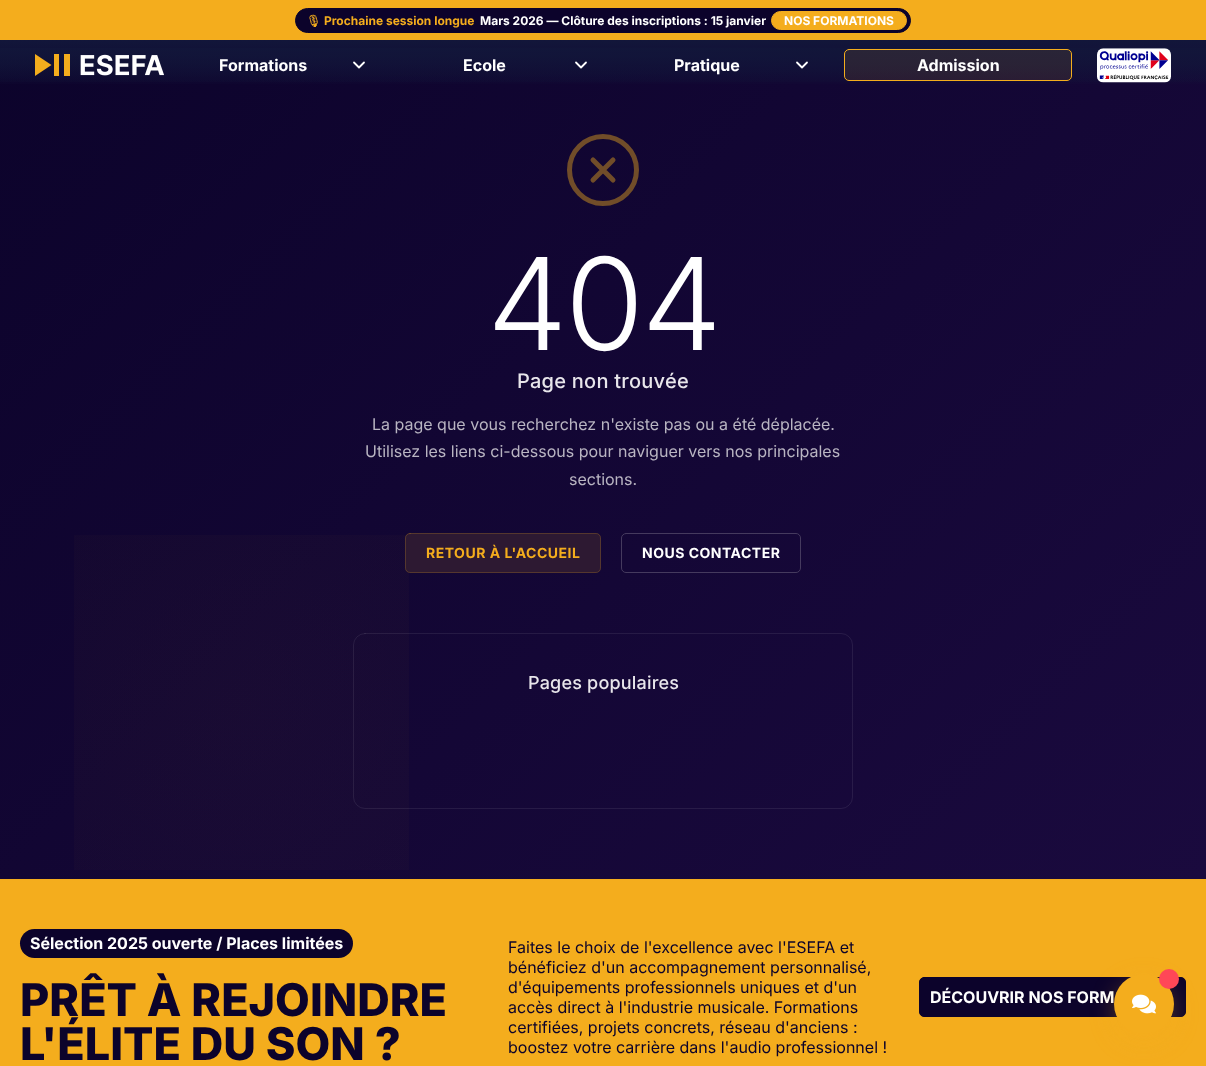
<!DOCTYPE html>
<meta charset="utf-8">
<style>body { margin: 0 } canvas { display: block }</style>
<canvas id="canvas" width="1206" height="1066"></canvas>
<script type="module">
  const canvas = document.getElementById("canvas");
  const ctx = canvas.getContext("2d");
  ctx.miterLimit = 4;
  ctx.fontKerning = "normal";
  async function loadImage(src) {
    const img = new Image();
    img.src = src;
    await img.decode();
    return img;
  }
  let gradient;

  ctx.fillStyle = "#ffffff";
  ctx.fillRect(0, 0, 1206, 1066);
  ctx.fillStyle = "#f4ad1d";
  ctx.fillRect(0, 0, 1206, 40);
  ctx.fillStyle = "#0c032b";
  ctx.beginPath();
  ctx.roundRect(295.5, 8.5, 615, 24, 12);
  ctx.fill();
  ctx.strokeStyle = "#0c032b";
  ctx.stroke();
  ctx.font = "bold 12px Noto Emoji";
  ctx.fillStyle = "#f4ad1d";
  ctx.fillText("🎙", 306, 25);
  ctx.font = "bold 12px Inter";
  ctx.fillText("Prochaine session longue", 324, 25);
  ctx.fillStyle = "#ffffff";
  ctx.fillText("Mars 2026 — Clôture des inscriptions : 15 janvier", 480, 25);
  ctx.fillStyle = "#f4ad1d";
  ctx.beginPath();
  ctx.roundRect(771.5, 11.5, 135, 18, 9);
  ctx.fill();
  ctx.strokeStyle = "#f4ad1d";
  ctx.stroke();
  ctx.fillStyle = "#ffffff";
  ctx.fillText("NOS FORMATIONS", 784, 25);
  gradient = ctx.createLinearGradient(82, -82, 1124, 961);
  gradient.addColorStop(0, "#0c032b");
  gradient.addColorStop(1, "#1a0a3e");
  ctx.fillStyle = gradient;
  ctx.fillRect(0, 40, 1206, 839);
  gradient = ctx.createLinearGradient(603, 40, 603, 90);
  gradient.addColorStop(0, "#12163a");
  gradient.addColorStop(1, "rgba(18, 22, 58, 0)");
  ctx.fillStyle = gradient;
  ctx.fillRect(0, 40, 1206, 44);
  ctx.fillRect(0, 48, 1206, 34);
  ctx.fillStyle = "#f4ad1d";
  ctx.beginPath();
  ctx.moveTo(51.5, 65);
  ctx.lineTo(35, 76);
  ctx.lineTo(35, 54);
  ctx.closePath();
  ctx.fill();
  ctx.fillRect(54, 54, 5, 22);
  ctx.fillRect(64, 54, 6, 22);
  ctx.drawImage(await loadImage("img1.png"), 80, 54, 84, 22);
  ctx.font = "bold 16px Inter";
  ctx.fillStyle = "#ffffff";
  ctx.fillText("Formations", 219, 71);
  ctx.beginPath();
  ctx.moveTo(354, 62.5);
  ctx.lineTo(359, 67.5);
  ctx.lineTo(364, 62.5);
  ctx.strokeStyle = "#ffffff";
  ctx.lineWidth = 1.8;
  ctx.lineCap = "round";
  ctx.lineJoin = "round";
  ctx.stroke();
  ctx.fillText("Ecole", 463, 71);
  ctx.beginPath();
  ctx.moveTo(576, 62.5);
  ctx.lineTo(581, 67.5);
  ctx.lineTo(586, 62.5);
  ctx.stroke();
  ctx.fillText("Pratique", 674, 71);
  ctx.beginPath();
  ctx.moveTo(797, 62.5);
  ctx.lineTo(802, 67.5);
  ctx.lineTo(807, 62.5);
  ctx.stroke();
  ctx.fillStyle = "rgba(244, 173, 29, 0.1)";
  ctx.beginPath();
  ctx.roundRect(844.5, 49.5, 227, 31, 4.5);
  ctx.fill();
  ctx.strokeStyle = "#f4ad1d";
  ctx.lineWidth = 1;
  ctx.lineJoin = "miter";
  ctx.stroke();
  ctx.fillStyle = "#ffffff";
  ctx.fillText("Admission", 917, 71);
  ctx.drawImage(await loadImage("img2.png"), 1097, 48, 74, 35);
  gradient = ctx.createRadialGradient(241, 703, 0, 241, 703, 1194);
  gradient.addColorStop(0, "rgba(244, 173, 29, 0.03)");
  gradient.addColorStop(0.5, "rgba(244, 173, 29, 0)");
  ctx.fillStyle = gradient;
  ctx.fillRect(74, 535, 335, 335);
  ctx.beginPath();
  ctx.arc(603, 170, 33.5, 0, Math.PI * 2);
  ctx.strokeStyle = "#714d29";
  ctx.lineWidth = 5;
  ctx.stroke();
  ctx.beginPath();
  ctx.moveTo(613, 160);
  ctx.lineTo(593, 180);
  ctx.moveTo(593, 160);
  ctx.lineTo(613, 180);
  ctx.stroke();
  ctx.letterSpacing = "-2.5px";
  ctx.font = "300 128px Inter";
  ctx.fillStyle = "#ffffff";
  ctx.fillText("404", 487, 350);
  ctx.letterSpacing = "0.25px";
  ctx.font = "500 20px Inter";
  ctx.fillStyle = "#e8e6eb";
  ctx.fillText("Page non trouvée", 517, 388);
  ctx.letterSpacing = "0px";
  ctx.font = "16px Inter";
  ctx.fillStyle = "#b9b5c2";
  ctx.fillText("La page que vous recherchez n'existe pas ou a été déplacée.", 372, 430);
  ctx.fillText("Utilisez les liens ci-dessous pour naviguer vers nos principales", 365, 457);
  ctx.fillText("sections.", 569, 485);
  ctx.fillStyle = "#2d1932";
  ctx.beginPath();
  ctx.roundRect(405, 533, 196, 40, 5);
  ctx.fill();
  ctx.beginPath();
  ctx.roundRect(405.5, 533.5, 195, 39, 4.5);
  ctx.strokeStyle = "rgba(244, 173, 29, 0.2)";
  ctx.lineWidth = 1;
  ctx.stroke();
  ctx.letterSpacing = "0.5px";
  ctx.font = "bold 14px Inter";
  ctx.fillStyle = "#f4ad1d";
  ctx.fillText("RETOUR À L'ACCUEIL", 426, 558);
  ctx.beginPath();
  ctx.roundRect(621.5, 533.5, 179, 39, 4.5);
  ctx.strokeStyle = "#453a5e";
  ctx.stroke();
  ctx.fillStyle = "#ffffff";
  ctx.fillText("NOUS CONTACTER", 642, 558);
  ctx.beginPath();
  ctx.roundRect(353.5, 633.5, 499, 175, 11.5);
  ctx.strokeStyle = "rgba(255, 255, 255, 0.08)";
  ctx.stroke();
  ctx.letterSpacing = "0.2px";
  ctx.font = "500 18px Inter";
  ctx.fillStyle = "#e8e6eb";
  ctx.fillText("Pages populaires", 528, 689);
  ctx.fillStyle = "#f4ad1d";
  ctx.fillRect(0, 879, 1206, 187);
  ctx.fillStyle = "#0c032b";
  ctx.beginPath();
  ctx.roundRect(20, 929, 333, 29, 14.5);
  ctx.fill();
  ctx.letterSpacing = "0px";
  ctx.font = "bold 16px Inter";
  ctx.fillStyle = "#ffffff";
  ctx.fillText("Sélection 2025 ouverte / Places limitées", 30, 949);
  ctx.font = "800 45px Inter";
  ctx.fillStyle = "#0c032b";
  ctx.fillText("PRÊT À REJOINDRE", 20, 1016);
  ctx.fillText("L'ÉLITE DU SON ?", 20, 1060);
  ctx.font = "16px Inter";
  ctx.fillText("Faites le choix de l'excellence avec l'ESEFA et", 508, 953);
  ctx.fillText("bénéficiez d'un accompagnement personnalisé,", 508, 973);
  ctx.fillText("d'équipements professionnels uniques et d'un", 508, 993);
  ctx.fillText("accès direct à l'industrie musicale. Formations", 508, 1013);
  ctx.fillText("certifiées, projets concrets, réseau d'anciens :", 508, 1033);
  ctx.fillText("boostez votre carrière dans l'audio professionnel !", 508, 1053);
  ctx.beginPath();
  ctx.roundRect(919.5, 977.5, 266, 39, 4.5);
  ctx.fill();
  ctx.strokeStyle = "#0c032b";
  ctx.stroke();
  ctx.font = "bold 16px Inter";
  ctx.fillStyle = "#ffffff";
  ctx.fillText("DÉCOUVRIR NOS FORM", 930, 1003);
  ctx.fillStyle = "rgba(244, 173, 29, 0.3)";
  ctx.filter = "blur(12.5px)";
  ctx.beginPath();
  ctx.roundRect(1114, 982, 60, 60, 30);
  ctx.fill();
  ctx.filter = "none";
  ctx.fillStyle = "#f4ad1d";
  ctx.beginPath();
  ctx.arc(1144, 1004, 30, 0, Math.PI * 2);
  ctx.fill();
  ctx.fillStyle = "#ff4757";
  ctx.beginPath();
  ctx.arc(1169, 979, 10, 0, Math.PI * 2);
  ctx.fill();
  ctx.drawImage(await loadImage("img3.png"), 1132, 994, 24, 20);
</script>
